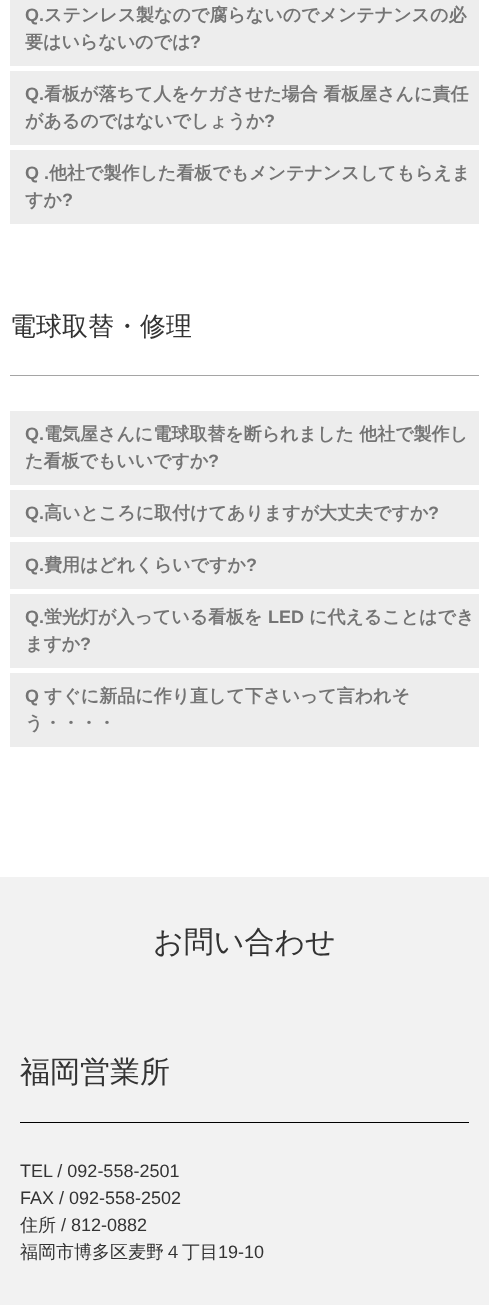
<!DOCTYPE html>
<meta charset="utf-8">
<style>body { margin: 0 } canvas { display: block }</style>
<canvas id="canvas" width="489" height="1305"></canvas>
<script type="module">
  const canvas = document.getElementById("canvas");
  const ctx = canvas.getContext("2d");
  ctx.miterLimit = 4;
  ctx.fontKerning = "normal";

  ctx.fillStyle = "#f2f2f2";
  ctx.fillRect(0, 0, 489, 1305);
  ctx.fillStyle = "#ffffff";
  ctx.fillRect(0, 0, 489, 877);
  ctx.fillStyle = "#ededed";
  ctx.fillRect(10, 0, 469, 66);
  ctx.font = "bold 18px Liberation Sans";
  ctx.fillStyle = "#747474";
  ctx.fillText("Q.", 25, 21);
  ctx.font = "bold 18px WenQuanYi Zen Hei";
  ctx.fillText("ステンレス製なので腐らないのでメンテナンスの必", 44, 21);
  ctx.fillText("要はいらないのでは", 25, 48);
  ctx.font = "bold 18px Liberation Sans";
  ctx.fillText("?", 190, 48);
  ctx.fillStyle = "#ededed";
  ctx.fillRect(10, 71, 469, 74);
  ctx.fillStyle = "#747474";
  ctx.fillText("Q.", 25, 100);
  ctx.font = "bold 18px WenQuanYi Zen Hei";
  ctx.fillText("看板が落ちて人をケガさせた場合 看板屋さんに責任", 44, 100);
  ctx.fillText("があるのではないでしょうか", 25, 127);
  ctx.font = "bold 18px Liberation Sans";
  ctx.fillText("?", 264, 127);
  ctx.fillStyle = "#ededed";
  ctx.fillRect(10, 150, 469, 74);
  ctx.fillStyle = "#747474";
  ctx.fillText("Q .", 25, 179);
  ctx.font = "bold 18px WenQuanYi Zen Hei";
  ctx.fillText("他社で製作した看板でもメンテナンスしてもらえま", 49, 179);
  ctx.fillText("すか", 25, 206);
  ctx.font = "bold 18px Liberation Sans";
  ctx.fillText("?", 62, 206);
  ctx.font = "500 26px WenQuanYi Zen Hei";
  ctx.fillStyle = "#333333";
  ctx.fillText("電球取替・修理", 10, 335);
  ctx.fillStyle = "#a5a5a5";
  ctx.fillRect(10, 375, 469, 1);
  ctx.fillStyle = "#ededed";
  ctx.fillRect(10, 411, 469, 74);
  ctx.font = "bold 18px Liberation Sans";
  ctx.fillStyle = "#747474";
  ctx.fillText("Q.", 25, 440);
  ctx.font = "bold 18px WenQuanYi Zen Hei";
  ctx.fillText("電気屋さんに電球取替を断られました 他社で製作し", 44, 440);
  ctx.fillText("た看板でもいいですか", 25, 467);
  ctx.font = "bold 18px Liberation Sans";
  ctx.fillText("?", 208, 467);
  ctx.fillStyle = "#ededed";
  ctx.fillRect(10, 490, 469, 47);
  ctx.fillStyle = "#747474";
  ctx.fillText("Q.", 25, 519);
  ctx.font = "bold 18px WenQuanYi Zen Hei";
  ctx.fillText("高いところに取付けてありますが大丈夫ですか", 44, 519);
  ctx.font = "bold 18px Liberation Sans";
  ctx.fillText("?", 428, 519);
  ctx.fillStyle = "#ededed";
  ctx.fillRect(10, 542, 469, 47);
  ctx.fillStyle = "#747474";
  ctx.fillText("Q.", 25, 571);
  ctx.font = "bold 18px WenQuanYi Zen Hei";
  ctx.fillText("費用はどれくらいですか", 44, 571);
  ctx.font = "bold 18px Liberation Sans";
  ctx.fillText("?", 246, 571);
  ctx.fillStyle = "#ededed";
  ctx.fillRect(10, 594, 469, 74);
  ctx.fillStyle = "#747474";
  ctx.fillText("Q.", 25, 623);
  ctx.font = "bold 18px WenQuanYi Zen Hei";
  ctx.fillText("蛍光灯が入っている看板を", 44, 623);
  ctx.font = "bold 18px Liberation Sans";
  ctx.fillText("LED", 268, 623);
  ctx.font = "bold 18px WenQuanYi Zen Hei";
  ctx.fillText("に代えることはでき", 309, 623);
  ctx.fillText("ますか", 25, 650);
  ctx.font = "bold 18px Liberation Sans";
  ctx.fillText("?", 80, 650);
  ctx.fillStyle = "#ededed";
  ctx.fillRect(10, 673, 469, 74);
  ctx.fillStyle = "#747474";
  ctx.fillText("Q", 25, 702);
  ctx.font = "bold 18px WenQuanYi Zen Hei";
  ctx.fillText("すぐに新品に作り直して下さいって言われそ", 44, 702);
  ctx.fillText("う・・・・", 25, 729);
  ctx.font = "500 30px WenQuanYi Zen Hei";
  ctx.fillStyle = "#333333";
  ctx.fillText("お問い合わせ", 153, 952);
  ctx.fillText("福岡営業所", 20, 1082);
  ctx.fillStyle = "#000000";
  ctx.fillRect(20, 1122, 449, 1);
  ctx.font = "18px Liberation Sans";
  ctx.fillStyle = "#333333";
  ctx.fillText("TEL / 092-558-2501", 20, 1177);
  ctx.fillText("FAX / 092-558-2502", 20, 1204);
  ctx.font = "500 18px WenQuanYi Zen Hei";
  ctx.fillText("住所", 20, 1231);
  ctx.font = "18px Liberation Sans";
  ctx.fillText("/ 812-0882", 61, 1231);
  ctx.font = "500 18px WenQuanYi Zen Hei";
  ctx.fillText("福岡市博多区麦野４丁目", 20, 1258);
  ctx.font = "18px Liberation Sans";
  ctx.fillText("19-10", 218, 1258);
</script>
